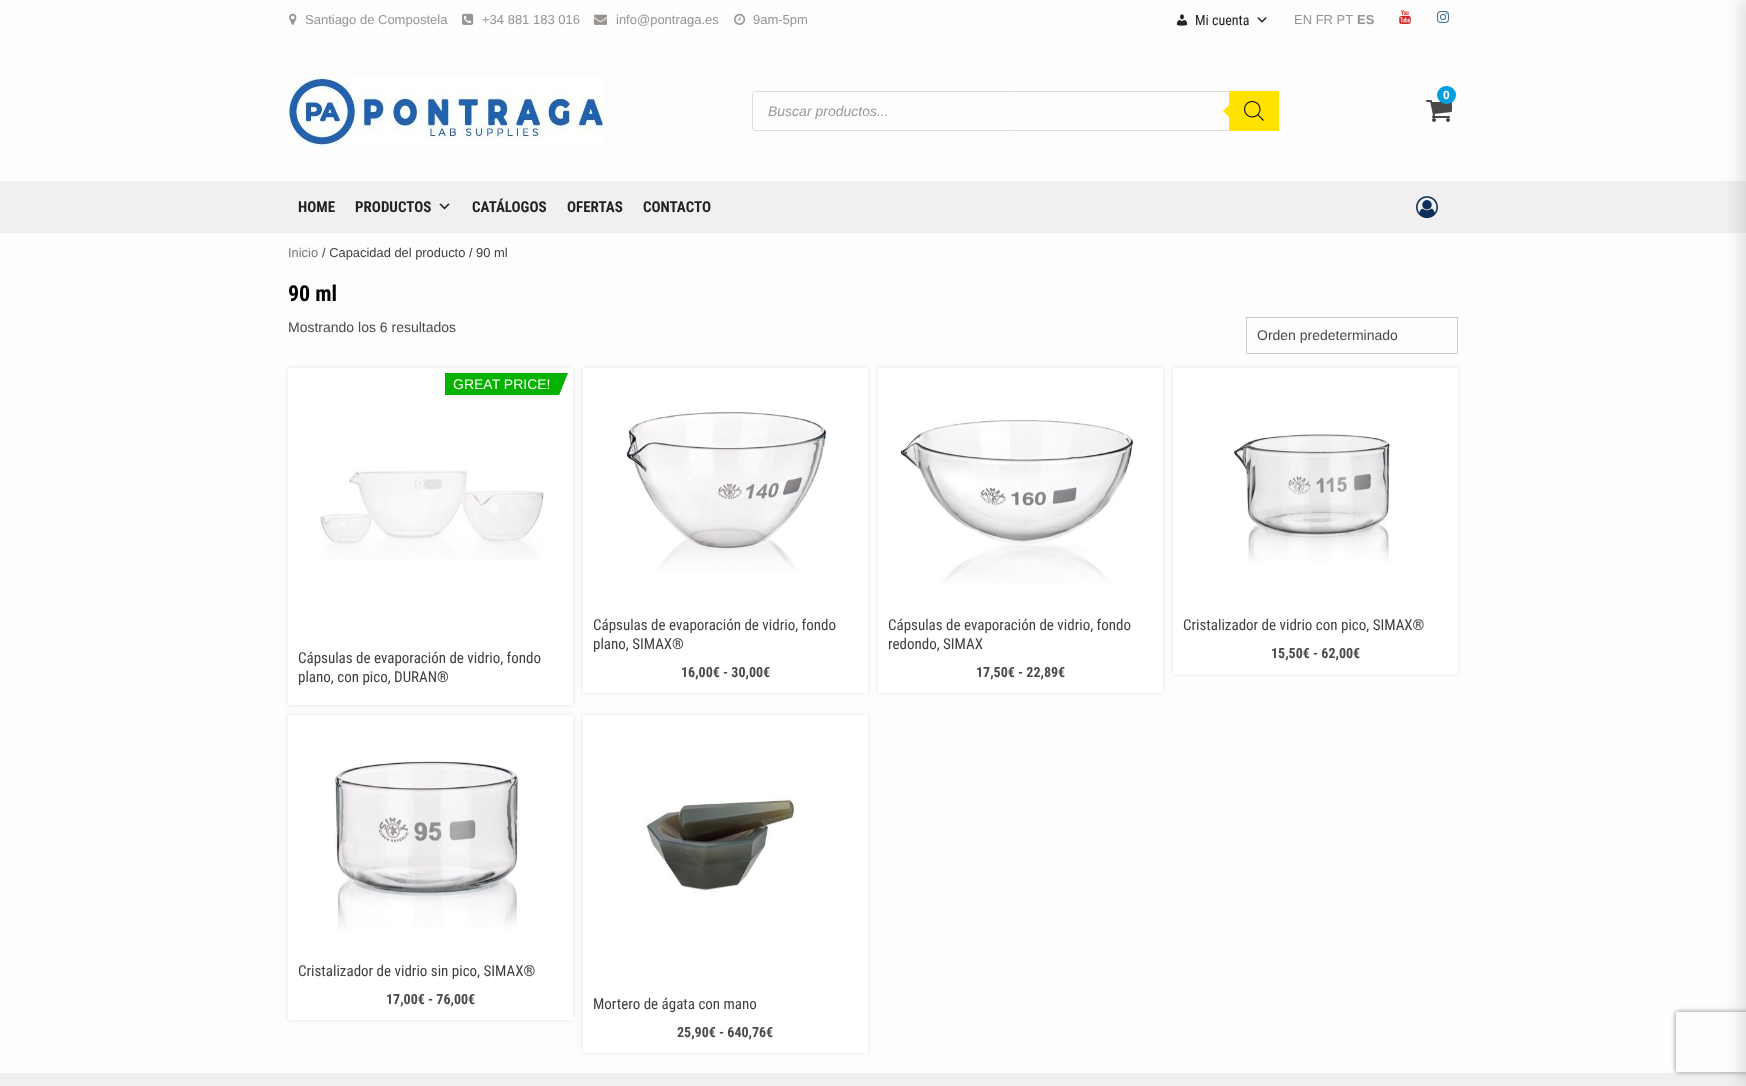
<!DOCTYPE html>
<meta charset="utf-8">
<style>body { margin: 0 } canvas { display: block }</style>
<canvas id="canvas" width="1746" height="1086"></canvas>
<script type="module">
  const canvas = document.getElementById("canvas");
  const ctx = canvas.getContext("2d");
  ctx.miterLimit = 4;
  ctx.fontKerning = "normal";
  async function loadImage(src) {
    const img = new Image();
    img.src = src;
    await img.decode();
    return img;
  }

  ctx.fillStyle = "#fdfdfd";
  ctx.fillRect(0, 0, 1746, 1086);
  ctx.drawImage(await loadImage("img1.png"), 289, 13, 8, 12);
  ctx.font = "13px Liberation Sans";
  ctx.fillStyle = "#979492";
  ctx.fillText("Santiago de Compostela", 305, 24);
  ctx.drawImage(await loadImage("img2.png"), 462, 13, 12, 12);
  ctx.fillText("+34 881 183 016", 482, 24);
  ctx.drawImage(await loadImage("img3.png"), 594, 14, 13, 11);
  ctx.fillText("info@pontraga.es", 616, 24);
  ctx.drawImage(await loadImage("img4.png"), 734, 13, 12, 12);
  ctx.fillText("9am-5pm", 753, 24);
  ctx.drawImage(await loadImage("img5.png"), 1176, 14, 12, 12);
  ctx.font = "14px Roboto Condensed";
  ctx.fillStyle = "#222222";
  ctx.fillText("Mi cuenta", 1195, 25);
  ctx.drawImage(await loadImage("img6.png"), 1257, 17, 10, 6);
  ctx.font = "13px Liberation Sans";
  ctx.fillStyle = "#979492";
  ctx.fillText("EN FR PT", 1294, 24);
  ctx.font = "bold 13px Liberation Sans";
  ctx.fillText("ES", 1357, 24);
  ctx.drawImage(await loadImage("img7.png"), 1399, 10, 12, 14);
  ctx.drawImage(await loadImage("img8.png"), 1437, 11, 12, 12);
  ctx.drawImage(await loadImage("img9.png"), 288, 75, 317, 71);
  ctx.drawImage(await loadImage("img10.png"), 1426, 100, 26, 22);
  ctx.fillStyle = "#029ee0";
  ctx.beginPath();
  ctx.roundRect(1437, 86, 19, 18, 9);
  ctx.fill();
  ctx.font = "bold 12px Liberation Sans";
  ctx.fillStyle = "#ffffff";
  ctx.fillText("0", 1443, 99);
  ctx.beginPath();
  ctx.roundRect(752.5, 91.5, 526, 39, 2.5);
  ctx.strokeStyle = "#dddddd";
  ctx.stroke();
  ctx.font = "italic 14px Liberation Sans";
  ctx.fillStyle = "#999999";
  ctx.fillText("Buscar productos...", 768, 116);
  ctx.fillStyle = "#ffe200";
  ctx.fillRect(1229, 91, 50, 40);
  ctx.beginPath();
  ctx.moveTo(1231, 103);
  ctx.lineTo(1231, 119);
  ctx.lineTo(1223, 111);
  ctx.closePath();
  ctx.fill();
  ctx.drawImage(await loadImage("img11.png"), 1244, 101, 20, 20);
  ctx.fillStyle = "#f0f0f0";
  ctx.fillRect(0, 181, 1746, 52);
  ctx.font = "bold 15px Roboto Condensed";
  ctx.fillStyle = "#222222";
  ctx.fillText("HOME", 298, 212);
  ctx.fillText("PRODUCTOS", 355, 212);
  ctx.drawImage(await loadImage("img12.png"), 439, 203, 11, 7);
  ctx.fillText("CATÁLOGOS", 472, 212);
  ctx.fillText("OFERTAS", 567, 212);
  ctx.fillText("CONTACTO", 643, 212);
  ctx.drawImage(await loadImage("img13.png"), 1416, 196, 22, 23);
  ctx.font = "12.9px Liberation Sans";
  ctx.fillStyle = "#777777";
  ctx.fillText("Inicio", 288, 257);
  ctx.fillStyle = "#404040";
  ctx.fillText("/ Capacidad del producto / 90 ml", 322, 257);
  ctx.font = "bold 22px Roboto Condensed";
  ctx.fillStyle = "#000000";
  ctx.fillText("90 ml", 288, 301);
  ctx.font = "14px Liberation Sans";
  ctx.fillStyle = "#4a4a4a";
  ctx.fillText("Mostrando los 6 resultados", 288, 332);
  ctx.strokeStyle = "#cccccc";
  ctx.strokeRect(1246.5, 317.5, 211, 36);
  ctx.fillText("Orden predeterminado", 1257, 340);
  ctx.fillStyle = "rgba(0, 0, 0, 0.1)";
  ctx.filter = "blur(2.5px)";
  ctx.beginPath();
  ctx.rect(288, 368, 285, 337);
  ctx.fill();
  ctx.filter = "none";
  ctx.fillStyle = "#ffffff";
  ctx.fillRect(288, 368, 285, 337);
  ctx.fillStyle = "#05b200";
  ctx.fillRect(445, 373, 114, 22);
  ctx.fillStyle = "#ffffff";
  ctx.fillText("GREAT PRICE!", 453, 389);
  ctx.fillStyle = "#05b200";
  ctx.beginPath();
  ctx.moveTo(559, 373);
  ctx.lineTo(568, 373);
  ctx.lineTo(559, 395.5);
  ctx.closePath();
  ctx.fill();
  ctx.drawImage(await loadImage("img14.png"), 320, 470, 226, 91);
  ctx.font = "15px Roboto Condensed";
  ctx.fillStyle = "#404040";
  ctx.fillText("Cápsulas de evaporación de vidrio, fondo", 298, 663);
  ctx.fillText("plano, con pico, DURAN®", 298, 682);
  ctx.fillStyle = "rgba(0, 0, 0, 0.1)";
  ctx.filter = "blur(2.5px)";
  ctx.beginPath();
  ctx.rect(583, 368, 285, 325);
  ctx.fill();
  ctx.filter = "none";
  ctx.fillStyle = "#ffffff";
  ctx.fillRect(583, 368, 285, 325);
  ctx.drawImage(await loadImage("img15.png"), 626, 412, 201, 159);
  ctx.fillStyle = "#404040";
  ctx.fillText("Cápsulas de evaporación de vidrio, fondo", 593, 630);
  ctx.fillText("plano, SIMAX®", 593, 649);
  ctx.font = "bold 14px Roboto Condensed";
  ctx.fillStyle = "#4a4a4a";
  ctx.fillText("16,00€ - 30,00€", 681, 677);
  ctx.fillStyle = "rgba(0, 0, 0, 0.1)";
  ctx.filter = "blur(2.5px)";
  ctx.beginPath();
  ctx.rect(878, 368, 285, 325);
  ctx.fill();
  ctx.filter = "none";
  ctx.fillStyle = "#ffffff";
  ctx.fillRect(878, 368, 285, 325);
  ctx.drawImage(await loadImage("img16.png"), 900, 419, 234, 165);
  ctx.font = "15px Roboto Condensed";
  ctx.fillStyle = "#404040";
  ctx.fillText("Cápsulas de evaporación de vidrio, fondo", 888, 630);
  ctx.fillText("redondo, SIMAX", 888, 649);
  ctx.font = "bold 14px Roboto Condensed";
  ctx.fillStyle = "#4a4a4a";
  ctx.fillText("17,50€ - 22,89€", 976, 677);
  ctx.fillStyle = "rgba(0, 0, 0, 0.1)";
  ctx.filter = "blur(2.5px)";
  ctx.beginPath();
  ctx.rect(1173, 368, 285, 306);
  ctx.fill();
  ctx.filter = "none";
  ctx.fillStyle = "#ffffff";
  ctx.fillRect(1173, 368, 285, 306);
  ctx.drawImage(await loadImage("img17.png"), 1234, 434, 156, 129);
  ctx.font = "15px Roboto Condensed";
  ctx.fillStyle = "#404040";
  ctx.fillText("Cristalizador de vidrio con pico, SIMAX®", 1183, 630);
  ctx.font = "bold 14px Roboto Condensed";
  ctx.fillStyle = "#4a4a4a";
  ctx.fillText("15,50€ - 62,00€", 1271, 658);
  ctx.fillStyle = "rgba(0, 0, 0, 0.1)";
  ctx.filter = "blur(2.5px)";
  ctx.beginPath();
  ctx.rect(288, 715, 285, 305);
  ctx.fill();
  ctx.filter = "none";
  ctx.fillStyle = "#ffffff";
  ctx.fillRect(288, 715, 285, 305);
  ctx.drawImage(await loadImage("img18.png"), 335, 761, 185, 170);
  ctx.font = "15px Roboto Condensed";
  ctx.fillStyle = "#404040";
  ctx.fillText("Cristalizador de vidrio sin pico, SIMAX®", 298, 976);
  ctx.font = "bold 14px Roboto Condensed";
  ctx.fillStyle = "#4a4a4a";
  ctx.fillText("17,00€ - 76,00€", 386, 1004);
  ctx.fillStyle = "rgba(0, 0, 0, 0.1)";
  ctx.filter = "blur(2.5px)";
  ctx.beginPath();
  ctx.rect(583, 715, 285, 338);
  ctx.fill();
  ctx.filter = "none";
  ctx.fillStyle = "#ffffff";
  ctx.fillRect(583, 715, 285, 338);
  ctx.drawImage(await loadImage("img19.png"), 644, 796, 152, 96);
  ctx.font = "15px Roboto Condensed";
  ctx.fillStyle = "#404040";
  ctx.fillText("Mortero de ágata con mano", 593, 1009);
  ctx.font = "bold 14px Roboto Condensed";
  ctx.fillStyle = "#4a4a4a";
  ctx.fillText("25,90€ - 640,76€", 677, 1037);
  ctx.fillStyle = "#f0f0f0";
  ctx.fillRect(0, 1073, 1746, 13);
  ctx.fillStyle = "rgba(0, 0, 0, 0.1)";
  ctx.filter = "blur(7.5px)";
  ctx.beginPath();
  ctx.rect(1739, 0, 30, 1086);
  ctx.fill();
  ctx.filter = "none";
  ctx.save();
  ctx.beginPath();
  ctx.moveTo(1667, 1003);
  ctx.lineTo(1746, 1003);
  ctx.lineTo(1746, 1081);
  ctx.lineTo(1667, 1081);
  ctx.closePath();
  ctx.moveTo(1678, 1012);
  ctx.lineTo(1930, 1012);
  ctx.bezierCurveTo(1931, 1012, 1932, 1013, 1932, 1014);
  ctx.lineTo(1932, 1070);
  ctx.bezierCurveTo(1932, 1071, 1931, 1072, 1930, 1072);
  ctx.lineTo(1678, 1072);
  ctx.bezierCurveTo(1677, 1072, 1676, 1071, 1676, 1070);
  ctx.lineTo(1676, 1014);
  ctx.bezierCurveTo(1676, 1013, 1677, 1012, 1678, 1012);
  ctx.closePath();
  ctx.clip("evenodd");
  ctx.fillStyle = "#808080";
  ctx.filter = "blur(2.5px)";
  ctx.beginPath();
  ctx.roundRect(1676, 1012, 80, 60, 2);
  ctx.fill();
  ctx.filter = "none";
  ctx.restore();
</script>
